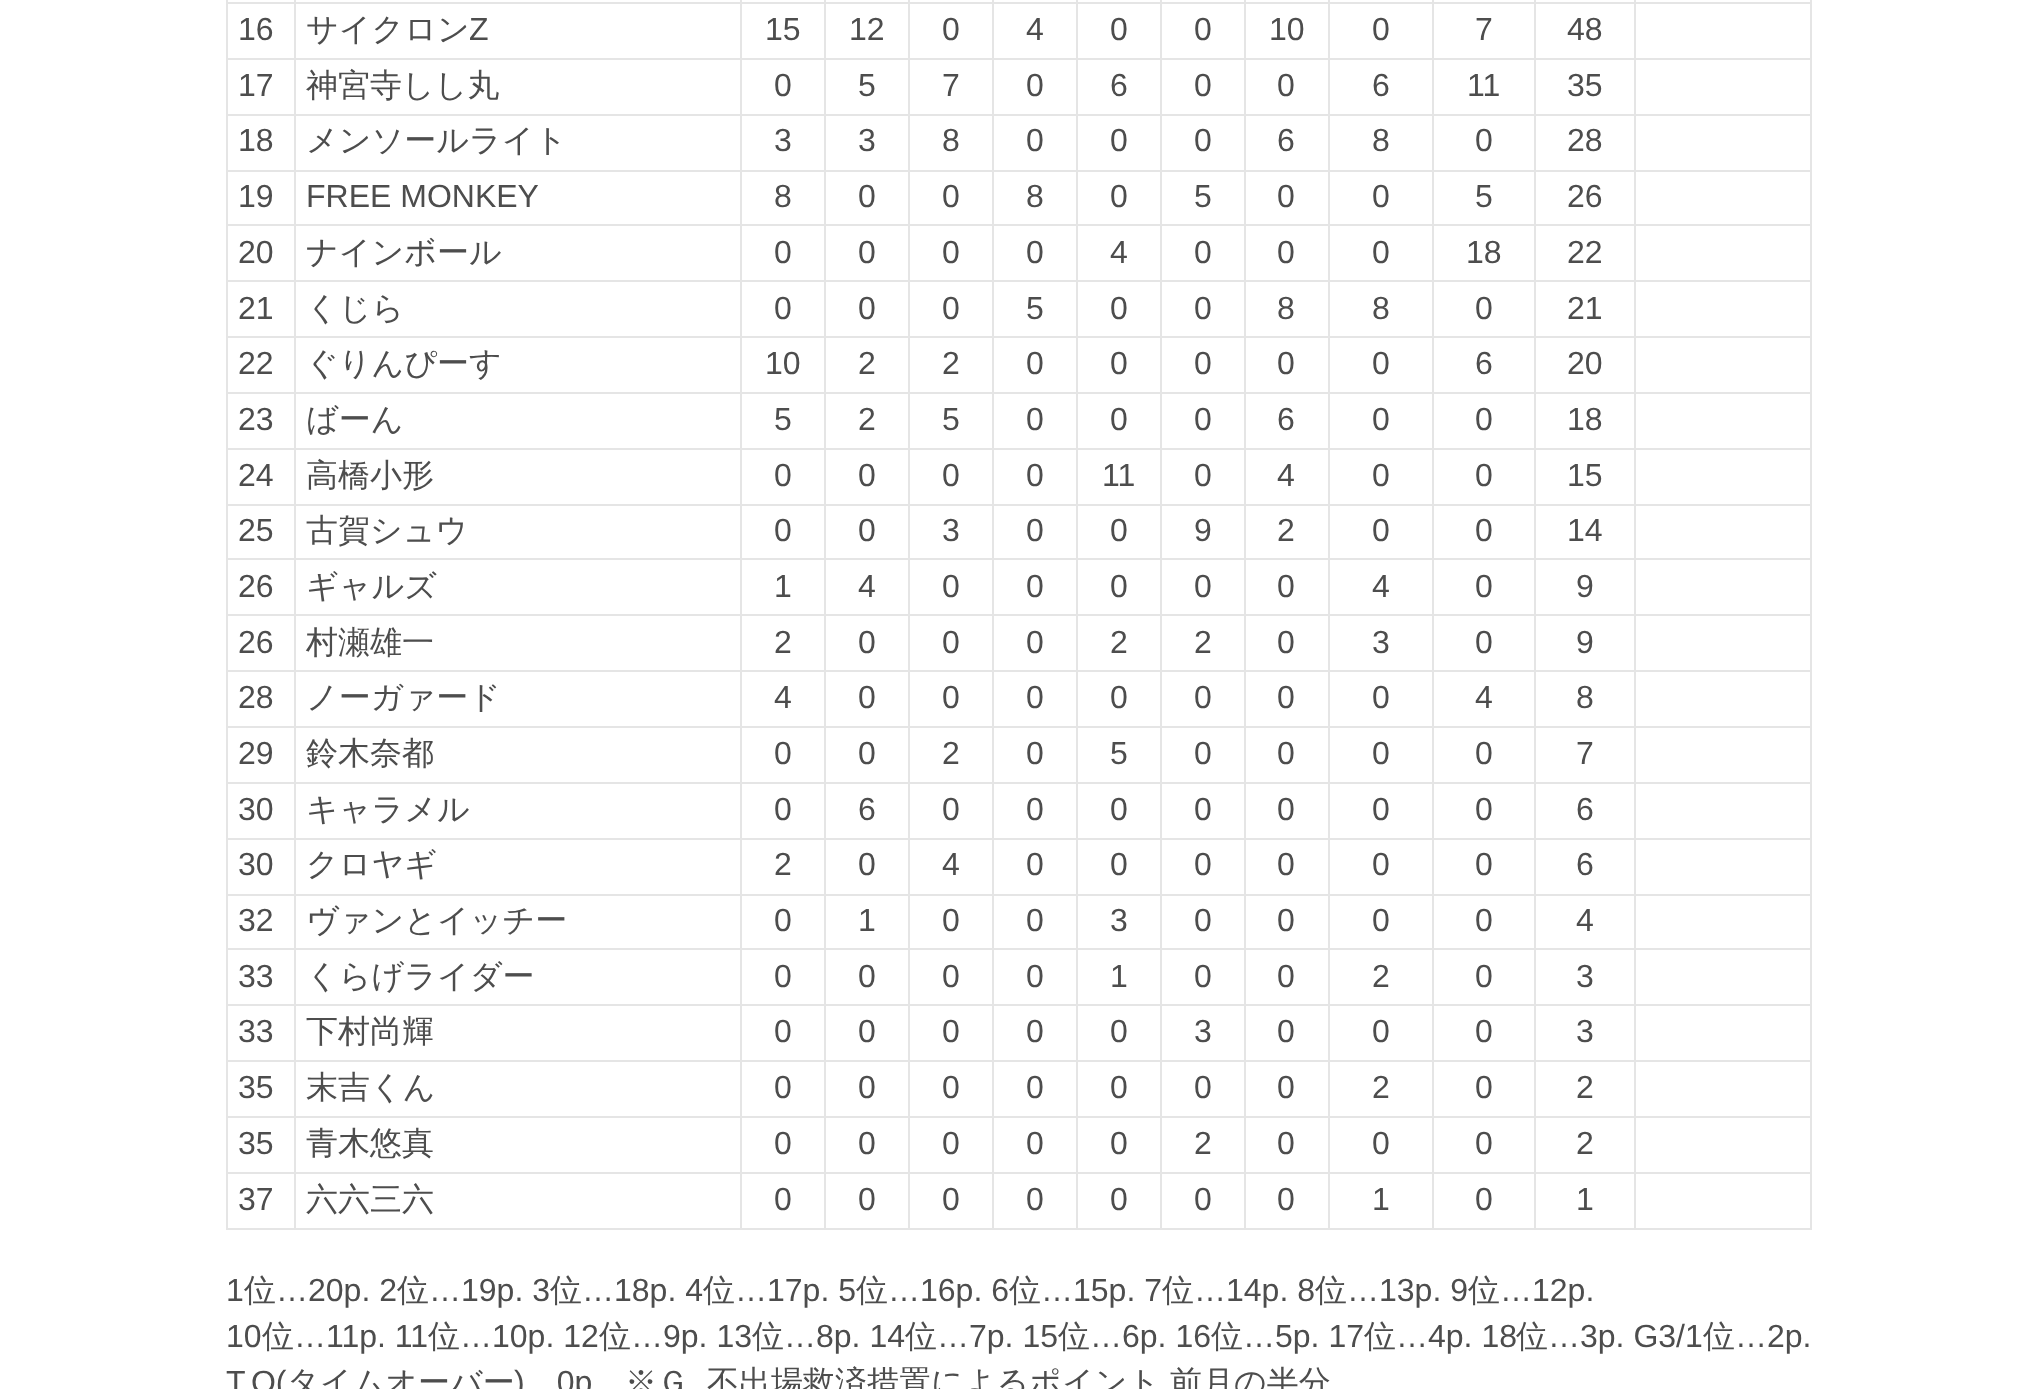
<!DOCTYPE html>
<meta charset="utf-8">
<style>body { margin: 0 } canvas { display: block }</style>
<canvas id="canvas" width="2038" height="1389"></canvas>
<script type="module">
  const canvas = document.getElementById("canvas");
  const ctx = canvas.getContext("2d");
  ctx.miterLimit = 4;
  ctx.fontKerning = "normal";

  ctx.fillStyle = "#ffffff";
  ctx.fillRect(0, 0, 2038, 1389);
  ctx.fillStyle = "#e5e5e5";
  ctx.fillRect(1634, 2, 178, 2);
  ctx.fillRect(1634, 58, 178, 2);
  ctx.fillRect(1634, 114, 178, 2);
  ctx.fillRect(1634, 170, 178, 2);
  ctx.fillRect(1634, 224, 178, 2);
  ctx.fillRect(1634, 280, 178, 2);
  ctx.fillRect(1634, 336, 178, 2);
  ctx.fillRect(1634, 392, 178, 2);
  ctx.fillRect(1634, 448, 178, 2);
  ctx.fillRect(1634, 504, 178, 2);
  ctx.fillRect(1634, 558, 178, 2);
  ctx.fillRect(1634, 614, 178, 2);
  ctx.fillRect(1634, 670, 178, 2);
  ctx.fillRect(1634, 726, 178, 2);
  ctx.fillRect(1634, 782, 178, 2);
  ctx.fillRect(1634, 838, 178, 2);
  ctx.fillRect(1634, 894, 178, 2);
  ctx.fillRect(1634, 948, 178, 2);
  ctx.fillRect(1634, 1004, 178, 2);
  ctx.fillRect(1634, 1060, 178, 2);
  ctx.fillRect(1634, 1116, 178, 2);
  ctx.fillRect(1634, 1172, 178, 2);
  ctx.fillRect(1810, 1172, 2, 58);
  ctx.fillRect(1634, 1228, 178, 2);
  ctx.fillRect(1634, 1172, 2, 58);
  ctx.fillRect(1534, 1172, 102, 2);
  ctx.fillRect(1634, 1116, 2, 58);
  ctx.fillRect(1534, 1116, 102, 2);
  ctx.fillRect(1634, 1060, 2, 58);
  ctx.fillRect(1534, 1060, 102, 2);
  ctx.fillRect(1634, 1004, 2, 58);
  ctx.fillRect(1534, 1004, 102, 2);
  ctx.fillRect(1634, 948, 2, 58);
  ctx.fillRect(1534, 948, 102, 2);
  ctx.fillRect(1634, 894, 2, 56);
  ctx.fillRect(1534, 894, 102, 2);
  ctx.fillRect(1634, 838, 2, 58);
  ctx.fillRect(1534, 838, 102, 2);
  ctx.fillRect(1634, 782, 2, 58);
  ctx.fillRect(1534, 782, 102, 2);
  ctx.fillRect(1634, 726, 2, 58);
  ctx.fillRect(1534, 726, 102, 2);
  ctx.fillRect(1634, 670, 2, 58);
  ctx.fillRect(1534, 670, 102, 2);
  ctx.fillRect(1634, 614, 2, 58);
  ctx.fillRect(1534, 614, 102, 2);
  ctx.fillRect(1634, 558, 2, 58);
  ctx.fillRect(1534, 558, 102, 2);
  ctx.fillRect(1634, 504, 2, 56);
  ctx.fillRect(1534, 504, 102, 2);
  ctx.fillRect(1634, 448, 2, 58);
  ctx.fillRect(1534, 448, 102, 2);
  ctx.fillRect(1634, 392, 2, 58);
  ctx.fillRect(1534, 392, 102, 2);
  ctx.fillRect(1634, 336, 2, 58);
  ctx.fillRect(1534, 336, 102, 2);
  ctx.fillRect(1634, 280, 2, 58);
  ctx.fillRect(1534, 280, 102, 2);
  ctx.fillRect(1634, 224, 2, 58);
  ctx.fillRect(1534, 224, 102, 2);
  ctx.fillRect(1634, 170, 2, 56);
  ctx.fillRect(1534, 170, 102, 2);
  ctx.fillRect(1634, 114, 2, 58);
  ctx.fillRect(1534, 114, 102, 2);
  ctx.fillRect(1634, 58, 2, 58);
  ctx.fillRect(1534, 58, 102, 2);
  ctx.fillRect(1634, 2, 2, 58);
  ctx.fillRect(1534, 2, 102, 2);
  ctx.fillRect(1534, 1228, 102, 2);
  ctx.fillRect(1534, 1172, 2, 58);
  ctx.fillRect(1432, 1172, 104, 2);
  ctx.fillRect(1534, 1116, 2, 58);
  ctx.fillRect(1432, 1116, 104, 2);
  ctx.fillRect(1534, 1060, 2, 58);
  ctx.fillRect(1432, 1060, 104, 2);
  ctx.fillRect(1534, 1004, 2, 58);
  ctx.fillRect(1432, 1004, 104, 2);
  ctx.fillRect(1534, 948, 2, 58);
  ctx.fillRect(1432, 948, 104, 2);
  ctx.fillRect(1534, 894, 2, 56);
  ctx.fillRect(1432, 894, 104, 2);
  ctx.fillRect(1534, 838, 2, 58);
  ctx.fillRect(1432, 838, 104, 2);
  ctx.fillRect(1534, 782, 2, 58);
  ctx.fillRect(1432, 782, 104, 2);
  ctx.fillRect(1534, 726, 2, 58);
  ctx.fillRect(1432, 726, 104, 2);
  ctx.fillRect(1534, 670, 2, 58);
  ctx.fillRect(1432, 670, 104, 2);
  ctx.fillRect(1534, 614, 2, 58);
  ctx.fillRect(1432, 614, 104, 2);
  ctx.fillRect(1534, 558, 2, 58);
  ctx.fillRect(1432, 558, 104, 2);
  ctx.fillRect(1534, 504, 2, 56);
  ctx.fillRect(1432, 504, 104, 2);
  ctx.fillRect(1534, 448, 2, 58);
  ctx.fillRect(1432, 448, 104, 2);
  ctx.fillRect(1534, 392, 2, 58);
  ctx.fillRect(1432, 392, 104, 2);
  ctx.fillRect(1534, 336, 2, 58);
  ctx.fillRect(1432, 336, 104, 2);
  ctx.fillRect(1534, 280, 2, 58);
  ctx.fillRect(1432, 280, 104, 2);
  ctx.fillRect(1534, 224, 2, 58);
  ctx.fillRect(1432, 224, 104, 2);
  ctx.fillRect(1534, 170, 2, 56);
  ctx.fillRect(1432, 170, 104, 2);
  ctx.fillRect(1534, 114, 2, 58);
  ctx.fillRect(1432, 114, 104, 2);
  ctx.fillRect(1534, 58, 2, 58);
  ctx.fillRect(1432, 58, 104, 2);
  ctx.fillRect(1534, 2, 2, 58);
  ctx.fillRect(1432, 2, 104, 2);
  ctx.fillRect(1432, 1228, 104, 2);
  ctx.fillRect(1432, 1172, 2, 58);
  ctx.fillRect(1328, 1172, 106, 2);
  ctx.fillRect(1432, 1116, 2, 58);
  ctx.fillRect(1328, 1116, 106, 2);
  ctx.fillRect(1432, 1060, 2, 58);
  ctx.fillRect(1328, 1060, 106, 2);
  ctx.fillRect(1432, 1004, 2, 58);
  ctx.fillRect(1328, 1004, 106, 2);
  ctx.fillRect(1432, 948, 2, 58);
  ctx.fillRect(1328, 948, 106, 2);
  ctx.fillRect(1432, 894, 2, 56);
  ctx.fillRect(1328, 894, 106, 2);
  ctx.fillRect(1432, 838, 2, 58);
  ctx.fillRect(1328, 838, 106, 2);
  ctx.fillRect(1432, 782, 2, 58);
  ctx.fillRect(1328, 782, 106, 2);
  ctx.fillRect(1432, 726, 2, 58);
  ctx.fillRect(1328, 726, 106, 2);
  ctx.fillRect(1432, 670, 2, 58);
  ctx.fillRect(1328, 670, 106, 2);
  ctx.fillRect(1432, 614, 2, 58);
  ctx.fillRect(1328, 614, 106, 2);
  ctx.fillRect(1432, 558, 2, 58);
  ctx.fillRect(1328, 558, 106, 2);
  ctx.fillRect(1432, 504, 2, 56);
  ctx.fillRect(1328, 504, 106, 2);
  ctx.fillRect(1432, 448, 2, 58);
  ctx.fillRect(1328, 448, 106, 2);
  ctx.fillRect(1432, 392, 2, 58);
  ctx.fillRect(1328, 392, 106, 2);
  ctx.fillRect(1432, 336, 2, 58);
  ctx.fillRect(1328, 336, 106, 2);
  ctx.fillRect(1432, 280, 2, 58);
  ctx.fillRect(1328, 280, 106, 2);
  ctx.fillRect(1432, 224, 2, 58);
  ctx.fillRect(1328, 224, 106, 2);
  ctx.fillRect(1432, 170, 2, 56);
  ctx.fillRect(1328, 170, 106, 2);
  ctx.fillRect(1432, 114, 2, 58);
  ctx.fillRect(1328, 114, 106, 2);
  ctx.fillRect(1432, 58, 2, 58);
  ctx.fillRect(1328, 58, 106, 2);
  ctx.fillRect(1432, 2, 2, 58);
  ctx.fillRect(1328, 2, 106, 2);
  ctx.fillRect(1328, 1228, 106, 2);
  ctx.fillRect(1328, 1172, 2, 58);
  ctx.fillRect(1244, 1172, 86, 2);
  ctx.fillRect(1328, 1116, 2, 58);
  ctx.fillRect(1244, 1116, 86, 2);
  ctx.fillRect(1328, 1060, 2, 58);
  ctx.fillRect(1244, 1060, 86, 2);
  ctx.fillRect(1328, 1004, 2, 58);
  ctx.fillRect(1244, 1004, 86, 2);
  ctx.fillRect(1328, 948, 2, 58);
  ctx.fillRect(1244, 948, 86, 2);
  ctx.fillRect(1328, 894, 2, 56);
  ctx.fillRect(1244, 894, 86, 2);
  ctx.fillRect(1328, 838, 2, 58);
  ctx.fillRect(1244, 838, 86, 2);
  ctx.fillRect(1328, 782, 2, 58);
  ctx.fillRect(1244, 782, 86, 2);
  ctx.fillRect(1328, 726, 2, 58);
  ctx.fillRect(1244, 726, 86, 2);
  ctx.fillRect(1328, 670, 2, 58);
  ctx.fillRect(1244, 670, 86, 2);
  ctx.fillRect(1328, 614, 2, 58);
  ctx.fillRect(1244, 614, 86, 2);
  ctx.fillRect(1328, 558, 2, 58);
  ctx.fillRect(1244, 558, 86, 2);
  ctx.fillRect(1328, 504, 2, 56);
  ctx.fillRect(1244, 504, 86, 2);
  ctx.fillRect(1328, 448, 2, 58);
  ctx.fillRect(1244, 448, 86, 2);
  ctx.fillRect(1328, 392, 2, 58);
  ctx.fillRect(1244, 392, 86, 2);
  ctx.fillRect(1328, 336, 2, 58);
  ctx.fillRect(1244, 336, 86, 2);
  ctx.fillRect(1328, 280, 2, 58);
  ctx.fillRect(1244, 280, 86, 2);
  ctx.fillRect(1328, 224, 2, 58);
  ctx.fillRect(1244, 224, 86, 2);
  ctx.fillRect(1328, 170, 2, 56);
  ctx.fillRect(1244, 170, 86, 2);
  ctx.fillRect(1328, 114, 2, 58);
  ctx.fillRect(1244, 114, 86, 2);
  ctx.fillRect(1328, 58, 2, 58);
  ctx.fillRect(1244, 58, 86, 2);
  ctx.fillRect(1328, 2, 2, 58);
  ctx.fillRect(1244, 2, 86, 2);
  ctx.fillRect(1244, 1228, 86, 2);
  ctx.fillRect(1244, 1172, 2, 58);
  ctx.fillRect(1160, 1172, 86, 2);
  ctx.fillRect(1244, 1116, 2, 58);
  ctx.fillRect(1160, 1116, 86, 2);
  ctx.fillRect(1244, 1060, 2, 58);
  ctx.fillRect(1160, 1060, 86, 2);
  ctx.fillRect(1244, 1004, 2, 58);
  ctx.fillRect(1160, 1004, 86, 2);
  ctx.fillRect(1244, 948, 2, 58);
  ctx.fillRect(1160, 948, 86, 2);
  ctx.fillRect(1244, 894, 2, 56);
  ctx.fillRect(1160, 894, 86, 2);
  ctx.fillRect(1244, 838, 2, 58);
  ctx.fillRect(1160, 838, 86, 2);
  ctx.fillRect(1244, 782, 2, 58);
  ctx.fillRect(1160, 782, 86, 2);
  ctx.fillRect(1244, 726, 2, 58);
  ctx.fillRect(1160, 726, 86, 2);
  ctx.fillRect(1244, 670, 2, 58);
  ctx.fillRect(1160, 670, 86, 2);
  ctx.fillRect(1244, 614, 2, 58);
  ctx.fillRect(1160, 614, 86, 2);
  ctx.fillRect(1244, 558, 2, 58);
  ctx.fillRect(1160, 558, 86, 2);
  ctx.fillRect(1244, 504, 2, 56);
  ctx.fillRect(1160, 504, 86, 2);
  ctx.fillRect(1244, 448, 2, 58);
  ctx.fillRect(1160, 448, 86, 2);
  ctx.fillRect(1244, 392, 2, 58);
  ctx.fillRect(1160, 392, 86, 2);
  ctx.fillRect(1244, 336, 2, 58);
  ctx.fillRect(1160, 336, 86, 2);
  ctx.fillRect(1244, 280, 2, 58);
  ctx.fillRect(1160, 280, 86, 2);
  ctx.fillRect(1244, 224, 2, 58);
  ctx.fillRect(1160, 224, 86, 2);
  ctx.fillRect(1244, 170, 2, 56);
  ctx.fillRect(1160, 170, 86, 2);
  ctx.fillRect(1244, 114, 2, 58);
  ctx.fillRect(1160, 114, 86, 2);
  ctx.fillRect(1244, 58, 2, 58);
  ctx.fillRect(1160, 58, 86, 2);
  ctx.fillRect(1244, 2, 2, 58);
  ctx.fillRect(1160, 2, 86, 2);
  ctx.fillRect(1160, 1228, 86, 2);
  ctx.fillRect(1160, 1172, 2, 58);
  ctx.fillRect(1076, 1172, 86, 2);
  ctx.fillRect(1160, 1116, 2, 58);
  ctx.fillRect(1076, 1116, 86, 2);
  ctx.fillRect(1160, 1060, 2, 58);
  ctx.fillRect(1076, 1060, 86, 2);
  ctx.fillRect(1160, 1004, 2, 58);
  ctx.fillRect(1076, 1004, 86, 2);
  ctx.fillRect(1160, 948, 2, 58);
  ctx.fillRect(1076, 948, 86, 2);
  ctx.fillRect(1160, 894, 2, 56);
  ctx.fillRect(1076, 894, 86, 2);
  ctx.fillRect(1160, 838, 2, 58);
  ctx.fillRect(1076, 838, 86, 2);
  ctx.fillRect(1160, 782, 2, 58);
  ctx.fillRect(1076, 782, 86, 2);
  ctx.fillRect(1160, 726, 2, 58);
  ctx.fillRect(1076, 726, 86, 2);
  ctx.fillRect(1160, 670, 2, 58);
  ctx.fillRect(1076, 670, 86, 2);
  ctx.fillRect(1160, 614, 2, 58);
  ctx.fillRect(1076, 614, 86, 2);
  ctx.fillRect(1160, 558, 2, 58);
  ctx.fillRect(1076, 558, 86, 2);
  ctx.fillRect(1160, 504, 2, 56);
  ctx.fillRect(1076, 504, 86, 2);
  ctx.fillRect(1160, 448, 2, 58);
  ctx.fillRect(1076, 448, 86, 2);
  ctx.fillRect(1160, 392, 2, 58);
  ctx.fillRect(1076, 392, 86, 2);
  ctx.fillRect(1160, 336, 2, 58);
  ctx.fillRect(1076, 336, 86, 2);
  ctx.fillRect(1160, 280, 2, 58);
  ctx.fillRect(1076, 280, 86, 2);
  ctx.fillRect(1160, 224, 2, 58);
  ctx.fillRect(1076, 224, 86, 2);
  ctx.fillRect(1160, 170, 2, 56);
  ctx.fillRect(1076, 170, 86, 2);
  ctx.fillRect(1160, 114, 2, 58);
  ctx.fillRect(1076, 114, 86, 2);
  ctx.fillRect(1160, 58, 2, 58);
  ctx.fillRect(1076, 58, 86, 2);
  ctx.fillRect(1160, 2, 2, 58);
  ctx.fillRect(1076, 2, 86, 2);
  ctx.fillRect(1076, 1228, 86, 2);
  ctx.fillRect(1076, 1172, 2, 58);
  ctx.fillRect(992, 1172, 86, 2);
  ctx.fillRect(1076, 1116, 2, 58);
  ctx.fillRect(992, 1116, 86, 2);
  ctx.fillRect(1076, 1060, 2, 58);
  ctx.fillRect(992, 1060, 86, 2);
  ctx.fillRect(1076, 1004, 2, 58);
  ctx.fillRect(992, 1004, 86, 2);
  ctx.fillRect(1076, 948, 2, 58);
  ctx.fillRect(992, 948, 86, 2);
  ctx.fillRect(1076, 894, 2, 56);
  ctx.fillRect(992, 894, 86, 2);
  ctx.fillRect(1076, 838, 2, 58);
  ctx.fillRect(992, 838, 86, 2);
  ctx.fillRect(1076, 782, 2, 58);
  ctx.fillRect(992, 782, 86, 2);
  ctx.fillRect(1076, 726, 2, 58);
  ctx.fillRect(992, 726, 86, 2);
  ctx.fillRect(1076, 670, 2, 58);
  ctx.fillRect(992, 670, 86, 2);
  ctx.fillRect(1076, 614, 2, 58);
  ctx.fillRect(992, 614, 86, 2);
  ctx.fillRect(1076, 558, 2, 58);
  ctx.fillRect(992, 558, 86, 2);
  ctx.fillRect(1076, 504, 2, 56);
  ctx.fillRect(992, 504, 86, 2);
  ctx.fillRect(1076, 448, 2, 58);
  ctx.fillRect(992, 448, 86, 2);
  ctx.fillRect(1076, 392, 2, 58);
  ctx.fillRect(992, 392, 86, 2);
  ctx.fillRect(1076, 336, 2, 58);
  ctx.fillRect(992, 336, 86, 2);
  ctx.fillRect(1076, 280, 2, 58);
  ctx.fillRect(992, 280, 86, 2);
  ctx.fillRect(1076, 224, 2, 58);
  ctx.fillRect(992, 224, 86, 2);
  ctx.fillRect(1076, 170, 2, 56);
  ctx.fillRect(992, 170, 86, 2);
  ctx.fillRect(1076, 114, 2, 58);
  ctx.fillRect(992, 114, 86, 2);
  ctx.fillRect(1076, 58, 2, 58);
  ctx.fillRect(992, 58, 86, 2);
  ctx.fillRect(1076, 2, 2, 58);
  ctx.fillRect(992, 2, 86, 2);
  ctx.fillRect(992, 1228, 86, 2);
  ctx.fillRect(992, 1172, 2, 58);
  ctx.fillRect(908, 1172, 86, 2);
  ctx.fillRect(992, 1116, 2, 58);
  ctx.fillRect(908, 1116, 86, 2);
  ctx.fillRect(992, 1060, 2, 58);
  ctx.fillRect(908, 1060, 86, 2);
  ctx.fillRect(992, 1004, 2, 58);
  ctx.fillRect(908, 1004, 86, 2);
  ctx.fillRect(992, 948, 2, 58);
  ctx.fillRect(908, 948, 86, 2);
  ctx.fillRect(992, 894, 2, 56);
  ctx.fillRect(908, 894, 86, 2);
  ctx.fillRect(992, 838, 2, 58);
  ctx.fillRect(908, 838, 86, 2);
  ctx.fillRect(992, 782, 2, 58);
  ctx.fillRect(908, 782, 86, 2);
  ctx.fillRect(992, 726, 2, 58);
  ctx.fillRect(908, 726, 86, 2);
  ctx.fillRect(992, 670, 2, 58);
  ctx.fillRect(908, 670, 86, 2);
  ctx.fillRect(992, 614, 2, 58);
  ctx.fillRect(908, 614, 86, 2);
  ctx.fillRect(992, 558, 2, 58);
  ctx.fillRect(908, 558, 86, 2);
  ctx.fillRect(992, 504, 2, 56);
  ctx.fillRect(908, 504, 86, 2);
  ctx.fillRect(992, 448, 2, 58);
  ctx.fillRect(908, 448, 86, 2);
  ctx.fillRect(992, 392, 2, 58);
  ctx.fillRect(908, 392, 86, 2);
  ctx.fillRect(992, 336, 2, 58);
  ctx.fillRect(908, 336, 86, 2);
  ctx.fillRect(992, 280, 2, 58);
  ctx.fillRect(908, 280, 86, 2);
  ctx.fillRect(992, 224, 2, 58);
  ctx.fillRect(908, 224, 86, 2);
  ctx.fillRect(992, 170, 2, 56);
  ctx.fillRect(908, 170, 86, 2);
  ctx.fillRect(992, 114, 2, 58);
  ctx.fillRect(908, 114, 86, 2);
  ctx.fillRect(992, 58, 2, 58);
  ctx.fillRect(908, 58, 86, 2);
  ctx.fillRect(992, 2, 2, 58);
  ctx.fillRect(908, 2, 86, 2);
  ctx.fillRect(908, 1228, 86, 2);
  ctx.fillRect(908, 1172, 2, 58);
  ctx.fillRect(824, 1172, 86, 2);
  ctx.fillRect(908, 1116, 2, 58);
  ctx.fillRect(824, 1116, 86, 2);
  ctx.fillRect(908, 1060, 2, 58);
  ctx.fillRect(824, 1060, 86, 2);
  ctx.fillRect(908, 1004, 2, 58);
  ctx.fillRect(824, 1004, 86, 2);
  ctx.fillRect(908, 948, 2, 58);
  ctx.fillRect(824, 948, 86, 2);
  ctx.fillRect(908, 894, 2, 56);
  ctx.fillRect(824, 894, 86, 2);
  ctx.fillRect(908, 838, 2, 58);
  ctx.fillRect(824, 838, 86, 2);
  ctx.fillRect(908, 782, 2, 58);
  ctx.fillRect(824, 782, 86, 2);
  ctx.fillRect(908, 726, 2, 58);
  ctx.fillRect(824, 726, 86, 2);
  ctx.fillRect(908, 670, 2, 58);
  ctx.fillRect(824, 670, 86, 2);
  ctx.fillRect(908, 614, 2, 58);
  ctx.fillRect(824, 614, 86, 2);
  ctx.fillRect(908, 558, 2, 58);
  ctx.fillRect(824, 558, 86, 2);
  ctx.fillRect(908, 504, 2, 56);
  ctx.fillRect(824, 504, 86, 2);
  ctx.fillRect(908, 448, 2, 58);
  ctx.fillRect(824, 448, 86, 2);
  ctx.fillRect(908, 392, 2, 58);
  ctx.fillRect(824, 392, 86, 2);
  ctx.fillRect(908, 336, 2, 58);
  ctx.fillRect(824, 336, 86, 2);
  ctx.fillRect(908, 280, 2, 58);
  ctx.fillRect(824, 280, 86, 2);
  ctx.fillRect(908, 224, 2, 58);
  ctx.fillRect(824, 224, 86, 2);
  ctx.fillRect(908, 170, 2, 56);
  ctx.fillRect(824, 170, 86, 2);
  ctx.fillRect(908, 114, 2, 58);
  ctx.fillRect(824, 114, 86, 2);
  ctx.fillRect(908, 58, 2, 58);
  ctx.fillRect(824, 58, 86, 2);
  ctx.fillRect(908, 2, 2, 58);
  ctx.fillRect(824, 2, 86, 2);
  ctx.fillRect(824, 1228, 86, 2);
  ctx.fillRect(824, 1172, 2, 58);
  ctx.fillRect(740, 1172, 86, 2);
  ctx.fillRect(824, 1116, 2, 58);
  ctx.fillRect(740, 1116, 86, 2);
  ctx.fillRect(824, 1060, 2, 58);
  ctx.fillRect(740, 1060, 86, 2);
  ctx.fillRect(824, 1004, 2, 58);
  ctx.fillRect(740, 1004, 86, 2);
  ctx.fillRect(824, 948, 2, 58);
  ctx.fillRect(740, 948, 86, 2);
  ctx.fillRect(824, 894, 2, 56);
  ctx.fillRect(740, 894, 86, 2);
  ctx.fillRect(824, 838, 2, 58);
  ctx.fillRect(740, 838, 86, 2);
  ctx.fillRect(824, 782, 2, 58);
  ctx.fillRect(740, 782, 86, 2);
  ctx.fillRect(824, 726, 2, 58);
  ctx.fillRect(740, 726, 86, 2);
  ctx.fillRect(824, 670, 2, 58);
  ctx.fillRect(740, 670, 86, 2);
  ctx.fillRect(824, 614, 2, 58);
  ctx.fillRect(740, 614, 86, 2);
  ctx.fillRect(824, 558, 2, 58);
  ctx.fillRect(740, 558, 86, 2);
  ctx.fillRect(824, 504, 2, 56);
  ctx.fillRect(740, 504, 86, 2);
  ctx.fillRect(824, 448, 2, 58);
  ctx.fillRect(740, 448, 86, 2);
  ctx.fillRect(824, 392, 2, 58);
  ctx.fillRect(740, 392, 86, 2);
  ctx.fillRect(824, 336, 2, 58);
  ctx.fillRect(740, 336, 86, 2);
  ctx.fillRect(824, 280, 2, 58);
  ctx.fillRect(740, 280, 86, 2);
  ctx.fillRect(824, 224, 2, 58);
  ctx.fillRect(740, 224, 86, 2);
  ctx.fillRect(824, 170, 2, 56);
  ctx.fillRect(740, 170, 86, 2);
  ctx.fillRect(824, 114, 2, 58);
  ctx.fillRect(740, 114, 86, 2);
  ctx.fillRect(824, 58, 2, 58);
  ctx.fillRect(740, 58, 86, 2);
  ctx.fillRect(824, 2, 2, 58);
  ctx.fillRect(740, 2, 86, 2);
  ctx.fillRect(740, 1228, 86, 2);
  ctx.fillRect(740, 1172, 2, 58);
  ctx.fillRect(294, 1172, 448, 2);
  ctx.fillRect(740, 1116, 2, 58);
  ctx.fillRect(294, 1116, 448, 2);
  ctx.fillRect(740, 1060, 2, 58);
  ctx.fillRect(294, 1060, 448, 2);
  ctx.fillRect(740, 1004, 2, 58);
  ctx.fillRect(294, 1004, 448, 2);
  ctx.fillRect(740, 948, 2, 58);
  ctx.fillRect(294, 948, 448, 2);
  ctx.fillRect(740, 894, 2, 56);
  ctx.fillRect(294, 894, 448, 2);
  ctx.fillRect(740, 838, 2, 58);
  ctx.fillRect(294, 838, 448, 2);
  ctx.fillRect(740, 782, 2, 58);
  ctx.fillRect(294, 782, 448, 2);
  ctx.fillRect(740, 726, 2, 58);
  ctx.fillRect(294, 726, 448, 2);
  ctx.fillRect(740, 670, 2, 58);
  ctx.fillRect(294, 670, 448, 2);
  ctx.fillRect(740, 614, 2, 58);
  ctx.fillRect(294, 614, 448, 2);
  ctx.fillRect(740, 558, 2, 58);
  ctx.fillRect(294, 558, 448, 2);
  ctx.fillRect(740, 504, 2, 56);
  ctx.fillRect(294, 504, 448, 2);
  ctx.fillRect(740, 448, 2, 58);
  ctx.fillRect(294, 448, 448, 2);
  ctx.fillRect(740, 392, 2, 58);
  ctx.fillRect(294, 392, 448, 2);
  ctx.fillRect(740, 336, 2, 58);
  ctx.fillRect(294, 336, 448, 2);
  ctx.fillRect(740, 280, 2, 58);
  ctx.fillRect(294, 280, 448, 2);
  ctx.fillRect(740, 224, 2, 58);
  ctx.fillRect(294, 224, 448, 2);
  ctx.fillRect(740, 170, 2, 56);
  ctx.fillRect(294, 170, 448, 2);
  ctx.fillRect(740, 114, 2, 58);
  ctx.fillRect(294, 114, 448, 2);
  ctx.fillRect(740, 58, 2, 58);
  ctx.fillRect(294, 58, 448, 2);
  ctx.fillRect(740, 2, 2, 58);
  ctx.fillRect(294, 2, 448, 2);
  ctx.fillRect(294, 1228, 448, 2);
  ctx.fillRect(294, 1172, 2, 58);
  ctx.fillRect(226, 1172, 70, 2);
  ctx.fillRect(294, 1116, 2, 58);
  ctx.fillRect(226, 1116, 70, 2);
  ctx.fillRect(294, 1060, 2, 58);
  ctx.fillRect(226, 1060, 70, 2);
  ctx.fillRect(294, 1004, 2, 58);
  ctx.fillRect(226, 1004, 70, 2);
  ctx.fillRect(294, 948, 2, 58);
  ctx.fillRect(226, 948, 70, 2);
  ctx.fillRect(294, 894, 2, 56);
  ctx.fillRect(226, 894, 70, 2);
  ctx.fillRect(294, 838, 2, 58);
  ctx.fillRect(226, 838, 70, 2);
  ctx.fillRect(294, 782, 2, 58);
  ctx.fillRect(226, 782, 70, 2);
  ctx.fillRect(294, 726, 2, 58);
  ctx.fillRect(226, 726, 70, 2);
  ctx.fillRect(294, 670, 2, 58);
  ctx.fillRect(226, 670, 70, 2);
  ctx.fillRect(294, 614, 2, 58);
  ctx.fillRect(226, 614, 70, 2);
  ctx.fillRect(294, 558, 2, 58);
  ctx.fillRect(226, 558, 70, 2);
  ctx.fillRect(294, 504, 2, 56);
  ctx.fillRect(226, 504, 70, 2);
  ctx.fillRect(294, 448, 2, 58);
  ctx.fillRect(226, 448, 70, 2);
  ctx.fillRect(294, 392, 2, 58);
  ctx.fillRect(226, 392, 70, 2);
  ctx.fillRect(294, 336, 2, 58);
  ctx.fillRect(226, 336, 70, 2);
  ctx.fillRect(294, 280, 2, 58);
  ctx.fillRect(226, 280, 70, 2);
  ctx.fillRect(294, 224, 2, 58);
  ctx.fillRect(226, 224, 70, 2);
  ctx.fillRect(294, 170, 2, 56);
  ctx.fillRect(226, 170, 70, 2);
  ctx.fillRect(294, 114, 2, 58);
  ctx.fillRect(226, 114, 70, 2);
  ctx.fillRect(294, 58, 2, 58);
  ctx.fillRect(226, 58, 70, 2);
  ctx.fillRect(294, 2, 2, 58);
  ctx.fillRect(226, 2, 70, 2);
  ctx.fillRect(294, 0, 2, 4);
  ctx.fillRect(740, 0, 2, 4);
  ctx.fillRect(824, 0, 2, 4);
  ctx.fillRect(908, 0, 2, 4);
  ctx.fillRect(992, 0, 2, 4);
  ctx.fillRect(1076, 0, 2, 4);
  ctx.fillRect(1160, 0, 2, 4);
  ctx.fillRect(1244, 0, 2, 4);
  ctx.fillRect(1328, 0, 2, 4);
  ctx.fillRect(1432, 0, 2, 4);
  ctx.fillRect(1534, 0, 2, 4);
  ctx.fillRect(1634, 0, 2, 4);
  ctx.fillRect(226, 1228, 70, 2);
  ctx.fillRect(226, 1172, 2, 58);
  ctx.fillRect(226, 1116, 2, 58);
  ctx.fillRect(226, 1060, 2, 58);
  ctx.fillRect(226, 1004, 2, 58);
  ctx.fillRect(226, 948, 2, 58);
  ctx.fillRect(226, 894, 2, 56);
  ctx.fillRect(226, 838, 2, 58);
  ctx.fillRect(226, 782, 2, 58);
  ctx.fillRect(226, 726, 2, 58);
  ctx.fillRect(226, 670, 2, 58);
  ctx.fillRect(226, 614, 2, 58);
  ctx.fillRect(226, 558, 2, 58);
  ctx.fillRect(226, 504, 2, 56);
  ctx.fillRect(226, 448, 2, 58);
  ctx.fillRect(226, 392, 2, 58);
  ctx.fillRect(226, 336, 2, 58);
  ctx.fillRect(226, 280, 2, 58);
  ctx.fillRect(226, 224, 2, 58);
  ctx.fillRect(226, 170, 2, 56);
  ctx.fillRect(226, 114, 2, 58);
  ctx.fillRect(226, 58, 2, 58);
  ctx.fillRect(226, 0, 2, 60);
  ctx.font = "32px Liberation Sans";
  ctx.fillStyle = "#4d4d4d";
  ctx.fillText("16", 238, 40);
  ctx.font = "500 32px WenQuanYi Zen Hei";
  ctx.fillText("サイクロン", 306, 40);
  ctx.font = "32px Liberation Sans";
  ctx.fillText("Z", 469, 40);
  ctx.fillText("15", 765, 40);
  ctx.fillText("12", 849, 40);
  ctx.fillText("0", 942, 40);
  ctx.fillText("4", 1026, 40);
  ctx.fillText("0", 1110, 40);
  ctx.fillText("0", 1194, 40);
  ctx.fillText("10", 1269, 40);
  ctx.fillText("0", 1372, 40);
  ctx.fillText("7", 1475, 40);
  ctx.fillText("48", 1567, 40);
  ctx.fillStyle = "#e5e5e5";
  ctx.fillRect(1810, 1116, 2, 58);
  ctx.fillRect(1810, 1060, 2, 58);
  ctx.fillRect(1810, 1004, 2, 58);
  ctx.fillRect(1810, 948, 2, 58);
  ctx.fillRect(1810, 894, 2, 56);
  ctx.fillRect(1810, 838, 2, 58);
  ctx.fillRect(1810, 782, 2, 58);
  ctx.fillRect(1810, 726, 2, 58);
  ctx.fillRect(1810, 670, 2, 58);
  ctx.fillRect(1810, 614, 2, 58);
  ctx.fillRect(1810, 558, 2, 58);
  ctx.fillRect(1810, 504, 2, 56);
  ctx.fillRect(1810, 448, 2, 58);
  ctx.fillRect(1810, 392, 2, 58);
  ctx.fillRect(1810, 336, 2, 58);
  ctx.fillRect(1810, 280, 2, 58);
  ctx.fillRect(1810, 224, 2, 58);
  ctx.fillRect(1810, 170, 2, 56);
  ctx.fillRect(1810, 114, 2, 58);
  ctx.fillRect(1810, 58, 2, 58);
  ctx.fillRect(1810, 0, 2, 60);
  ctx.fillStyle = "#4d4d4d";
  ctx.fillText("17", 238, 96);
  ctx.font = "500 32px WenQuanYi Zen Hei";
  ctx.fillText("神宮寺しし丸", 306, 96);
  ctx.font = "32px Liberation Sans";
  ctx.fillText("0", 774, 96);
  ctx.fillText("5", 858, 96);
  ctx.fillText("7", 942, 96);
  ctx.fillText("0", 1026, 96);
  ctx.fillText("6", 1110, 96);
  ctx.fillText("0", 1194, 96);
  ctx.fillText("0", 1277, 96);
  ctx.fillText("6", 1372, 96);
  ctx.fillText("11", 1467, 96);
  ctx.fillText("35", 1567, 96);
  ctx.fillText("18", 238, 151);
  ctx.font = "500 32px WenQuanYi Zen Hei";
  ctx.fillText("メンソールライト", 306, 151);
  ctx.font = "32px Liberation Sans";
  ctx.fillText("3", 774, 151);
  ctx.fillText("3", 858, 151);
  ctx.fillText("8", 942, 151);
  ctx.fillText("0", 1026, 151);
  ctx.fillText("0", 1110, 151);
  ctx.fillText("0", 1194, 151);
  ctx.fillText("6", 1277, 151);
  ctx.fillText("8", 1372, 151);
  ctx.fillText("0", 1475, 151);
  ctx.fillText("28", 1567, 151);
  ctx.fillText("19", 238, 207);
  ctx.fillText("FREE MONKEY", 306, 207);
  ctx.fillText("8", 774, 207);
  ctx.fillText("0", 858, 207);
  ctx.fillText("0", 942, 207);
  ctx.fillText("8", 1026, 207);
  ctx.fillText("0", 1110, 207);
  ctx.fillText("5", 1194, 207);
  ctx.fillText("0", 1277, 207);
  ctx.fillText("0", 1372, 207);
  ctx.fillText("5", 1475, 207);
  ctx.fillText("26", 1567, 207);
  ctx.fillText("20", 238, 263);
  ctx.font = "500 32px WenQuanYi Zen Hei";
  ctx.fillText("ナインボール", 306, 263);
  ctx.font = "32px Liberation Sans";
  ctx.fillText("0", 774, 263);
  ctx.fillText("0", 858, 263);
  ctx.fillText("0", 942, 263);
  ctx.fillText("0", 1026, 263);
  ctx.fillText("4", 1110, 263);
  ctx.fillText("0", 1194, 263);
  ctx.fillText("0", 1277, 263);
  ctx.fillText("0", 1372, 263);
  ctx.fillText("18", 1466, 263);
  ctx.fillText("22", 1567, 263);
  ctx.fillText("21", 238, 319);
  ctx.font = "500 32px WenQuanYi Zen Hei";
  ctx.fillText("くじら", 306, 319);
  ctx.font = "32px Liberation Sans";
  ctx.fillText("0", 774, 319);
  ctx.fillText("0", 858, 319);
  ctx.fillText("0", 942, 319);
  ctx.fillText("5", 1026, 319);
  ctx.fillText("0", 1110, 319);
  ctx.fillText("0", 1194, 319);
  ctx.fillText("8", 1277, 319);
  ctx.fillText("8", 1372, 319);
  ctx.fillText("0", 1475, 319);
  ctx.fillText("21", 1567, 319);
  ctx.fillText("22", 238, 374);
  ctx.font = "500 32px WenQuanYi Zen Hei";
  ctx.fillText("ぐりんぴーす", 306, 374);
  ctx.font = "32px Liberation Sans";
  ctx.fillText("10", 765, 374);
  ctx.fillText("2", 858, 374);
  ctx.fillText("2", 942, 374);
  ctx.fillText("0", 1026, 374);
  ctx.fillText("0", 1110, 374);
  ctx.fillText("0", 1194, 374);
  ctx.fillText("0", 1277, 374);
  ctx.fillText("0", 1372, 374);
  ctx.fillText("6", 1475, 374);
  ctx.fillText("20", 1567, 374);
  ctx.fillText("23", 238, 430);
  ctx.font = "500 32px WenQuanYi Zen Hei";
  ctx.fillText("ばーん", 306, 430);
  ctx.font = "32px Liberation Sans";
  ctx.fillText("5", 774, 430);
  ctx.fillText("2", 858, 430);
  ctx.fillText("5", 942, 430);
  ctx.fillText("0", 1026, 430);
  ctx.fillText("0", 1110, 430);
  ctx.fillText("0", 1194, 430);
  ctx.fillText("6", 1277, 430);
  ctx.fillText("0", 1372, 430);
  ctx.fillText("0", 1475, 430);
  ctx.fillText("18", 1567, 430);
  ctx.fillText("24", 238, 486);
  ctx.font = "500 32px WenQuanYi Zen Hei";
  ctx.fillText("高橋小形", 306, 486);
  ctx.font = "32px Liberation Sans";
  ctx.fillText("0", 774, 486);
  ctx.fillText("0", 858, 486);
  ctx.fillText("0", 942, 486);
  ctx.fillText("0", 1026, 486);
  ctx.fillText("11", 1102, 486);
  ctx.fillText("0", 1194, 486);
  ctx.fillText("4", 1277, 486);
  ctx.fillText("0", 1372, 486);
  ctx.fillText("0", 1475, 486);
  ctx.fillText("15", 1567, 486);
  ctx.fillText("25", 238, 541);
  ctx.font = "500 32px WenQuanYi Zen Hei";
  ctx.fillText("古賀シュウ", 306, 541);
  ctx.font = "32px Liberation Sans";
  ctx.fillText("0", 774, 541);
  ctx.fillText("0", 858, 541);
  ctx.fillText("3", 942, 541);
  ctx.fillText("0", 1026, 541);
  ctx.fillText("0", 1110, 541);
  ctx.fillText("9", 1194, 541);
  ctx.fillText("2", 1277, 541);
  ctx.fillText("0", 1372, 541);
  ctx.fillText("0", 1475, 541);
  ctx.fillText("14", 1567, 541);
  ctx.fillText("26", 238, 597);
  ctx.font = "500 32px WenQuanYi Zen Hei";
  ctx.fillText("ギャルズ", 306, 597);
  ctx.font = "32px Liberation Sans";
  ctx.fillText("1", 774, 597);
  ctx.fillText("4", 858, 597);
  ctx.fillText("0", 942, 597);
  ctx.fillText("0", 1026, 597);
  ctx.fillText("0", 1110, 597);
  ctx.fillText("0", 1194, 597);
  ctx.fillText("0", 1277, 597);
  ctx.fillText("4", 1372, 597);
  ctx.fillText("0", 1475, 597);
  ctx.fillText("9", 1576, 597);
  ctx.fillText("26", 238, 653);
  ctx.font = "500 32px WenQuanYi Zen Hei";
  ctx.fillText("村瀬雄一", 306, 653);
  ctx.font = "32px Liberation Sans";
  ctx.fillText("2", 774, 653);
  ctx.fillText("0", 858, 653);
  ctx.fillText("0", 942, 653);
  ctx.fillText("0", 1026, 653);
  ctx.fillText("2", 1110, 653);
  ctx.fillText("2", 1194, 653);
  ctx.fillText("0", 1277, 653);
  ctx.fillText("3", 1372, 653);
  ctx.fillText("0", 1475, 653);
  ctx.fillText("9", 1576, 653);
  ctx.fillText("28", 238, 708);
  ctx.font = "500 32px WenQuanYi Zen Hei";
  ctx.fillText("ノーガァード", 306, 708);
  ctx.font = "32px Liberation Sans";
  ctx.fillText("4", 774, 708);
  ctx.fillText("0", 858, 708);
  ctx.fillText("0", 942, 708);
  ctx.fillText("0", 1026, 708);
  ctx.fillText("0", 1110, 708);
  ctx.fillText("0", 1194, 708);
  ctx.fillText("0", 1277, 708);
  ctx.fillText("0", 1372, 708);
  ctx.fillText("4", 1475, 708);
  ctx.fillText("8", 1576, 708);
  ctx.fillText("29", 238, 764);
  ctx.font = "500 32px WenQuanYi Zen Hei";
  ctx.fillText("鈴木奈都", 306, 764);
  ctx.font = "32px Liberation Sans";
  ctx.fillText("0", 774, 764);
  ctx.fillText("0", 858, 764);
  ctx.fillText("2", 942, 764);
  ctx.fillText("0", 1026, 764);
  ctx.fillText("5", 1110, 764);
  ctx.fillText("0", 1194, 764);
  ctx.fillText("0", 1277, 764);
  ctx.fillText("0", 1372, 764);
  ctx.fillText("0", 1475, 764);
  ctx.fillText("7", 1576, 764);
  ctx.fillText("30", 238, 820);
  ctx.font = "500 32px WenQuanYi Zen Hei";
  ctx.fillText("キャラメル", 306, 820);
  ctx.font = "32px Liberation Sans";
  ctx.fillText("0", 774, 820);
  ctx.fillText("6", 858, 820);
  ctx.fillText("0", 942, 820);
  ctx.fillText("0", 1026, 820);
  ctx.fillText("0", 1110, 820);
  ctx.fillText("0", 1194, 820);
  ctx.fillText("0", 1277, 820);
  ctx.fillText("0", 1372, 820);
  ctx.fillText("0", 1475, 820);
  ctx.fillText("6", 1576, 820);
  ctx.fillText("30", 238, 875);
  ctx.font = "500 32px WenQuanYi Zen Hei";
  ctx.fillText("クロヤギ", 306, 875);
  ctx.font = "32px Liberation Sans";
  ctx.fillText("2", 774, 875);
  ctx.fillText("0", 858, 875);
  ctx.fillText("4", 942, 875);
  ctx.fillText("0", 1026, 875);
  ctx.fillText("0", 1110, 875);
  ctx.fillText("0", 1194, 875);
  ctx.fillText("0", 1277, 875);
  ctx.fillText("0", 1372, 875);
  ctx.fillText("0", 1475, 875);
  ctx.fillText("6", 1576, 875);
  ctx.fillText("32", 238, 931);
  ctx.font = "500 32px WenQuanYi Zen Hei";
  ctx.fillText("ヴァンとイッチー", 306, 931);
  ctx.font = "32px Liberation Sans";
  ctx.fillText("0", 774, 931);
  ctx.fillText("1", 858, 931);
  ctx.fillText("0", 942, 931);
  ctx.fillText("0", 1026, 931);
  ctx.fillText("3", 1110, 931);
  ctx.fillText("0", 1194, 931);
  ctx.fillText("0", 1277, 931);
  ctx.fillText("0", 1372, 931);
  ctx.fillText("0", 1475, 931);
  ctx.fillText("4", 1576, 931);
  ctx.fillText("33", 238, 987);
  ctx.font = "500 32px WenQuanYi Zen Hei";
  ctx.fillText("くらげライダー", 306, 987);
  ctx.font = "32px Liberation Sans";
  ctx.fillText("0", 774, 987);
  ctx.fillText("0", 858, 987);
  ctx.fillText("0", 942, 987);
  ctx.fillText("0", 1026, 987);
  ctx.fillText("1", 1110, 987);
  ctx.fillText("0", 1194, 987);
  ctx.fillText("0", 1277, 987);
  ctx.fillText("2", 1372, 987);
  ctx.fillText("0", 1475, 987);
  ctx.fillText("3", 1576, 987);
  ctx.fillText("33", 238, 1042);
  ctx.font = "500 32px WenQuanYi Zen Hei";
  ctx.fillText("下村尚輝", 306, 1042);
  ctx.font = "32px Liberation Sans";
  ctx.fillText("0", 774, 1042);
  ctx.fillText("0", 858, 1042);
  ctx.fillText("0", 942, 1042);
  ctx.fillText("0", 1026, 1042);
  ctx.fillText("0", 1110, 1042);
  ctx.fillText("3", 1194, 1042);
  ctx.fillText("0", 1277, 1042);
  ctx.fillText("0", 1372, 1042);
  ctx.fillText("0", 1475, 1042);
  ctx.fillText("3", 1576, 1042);
  ctx.fillText("35", 238, 1098);
  ctx.font = "500 32px WenQuanYi Zen Hei";
  ctx.fillText("末吉くん", 306, 1098);
  ctx.font = "32px Liberation Sans";
  ctx.fillText("0", 774, 1098);
  ctx.fillText("0", 858, 1098);
  ctx.fillText("0", 942, 1098);
  ctx.fillText("0", 1026, 1098);
  ctx.fillText("0", 1110, 1098);
  ctx.fillText("0", 1194, 1098);
  ctx.fillText("0", 1277, 1098);
  ctx.fillText("2", 1372, 1098);
  ctx.fillText("0", 1475, 1098);
  ctx.fillText("2", 1576, 1098);
  ctx.fillText("35", 238, 1154);
  ctx.font = "500 32px WenQuanYi Zen Hei";
  ctx.fillText("青木悠真", 306, 1154);
  ctx.font = "32px Liberation Sans";
  ctx.fillText("0", 774, 1154);
  ctx.fillText("0", 858, 1154);
  ctx.fillText("0", 942, 1154);
  ctx.fillText("0", 1026, 1154);
  ctx.fillText("0", 1110, 1154);
  ctx.fillText("2", 1194, 1154);
  ctx.fillText("0", 1277, 1154);
  ctx.fillText("0", 1372, 1154);
  ctx.fillText("0", 1475, 1154);
  ctx.fillText("2", 1576, 1154);
  ctx.fillText("37", 238, 1210);
  ctx.font = "500 32px WenQuanYi Zen Hei";
  ctx.fillText("六六三六", 306, 1210);
  ctx.font = "32px Liberation Sans";
  ctx.fillText("0", 774, 1210);
  ctx.fillText("0", 858, 1210);
  ctx.fillText("0", 942, 1210);
  ctx.fillText("0", 1026, 1210);
  ctx.fillText("0", 1110, 1210);
  ctx.fillText("0", 1194, 1210);
  ctx.fillText("0", 1277, 1210);
  ctx.fillText("1", 1372, 1210);
  ctx.fillText("0", 1475, 1210);
  ctx.fillText("1", 1576, 1210);
  ctx.fillText("1", 226, 1301);
  ctx.font = "500 32px WenQuanYi Zen Hei";
  ctx.fillText("位", 244, 1301);
  ctx.font = "32px Liberation Sans";
  ctx.fillText("…20p. 2", 276, 1301);
  ctx.font = "500 32px WenQuanYi Zen Hei";
  ctx.fillText("位", 397, 1301);
  ctx.font = "32px Liberation Sans";
  ctx.fillText("…19p. 3", 429, 1301);
  ctx.font = "500 32px WenQuanYi Zen Hei";
  ctx.fillText("位", 550, 1301);
  ctx.font = "32px Liberation Sans";
  ctx.fillText("…18p. 4", 582, 1301);
  ctx.font = "500 32px WenQuanYi Zen Hei";
  ctx.fillText("位", 703, 1301);
  ctx.font = "32px Liberation Sans";
  ctx.fillText("…17p. 5", 735, 1301);
  ctx.font = "500 32px WenQuanYi Zen Hei";
  ctx.fillText("位", 856, 1301);
  ctx.font = "32px Liberation Sans";
  ctx.fillText("…16p. 6", 888, 1301);
  ctx.font = "500 32px WenQuanYi Zen Hei";
  ctx.fillText("位", 1009, 1301);
  ctx.font = "32px Liberation Sans";
  ctx.fillText("…15p. 7", 1041, 1301);
  ctx.font = "500 32px WenQuanYi Zen Hei";
  ctx.fillText("位", 1162, 1301);
  ctx.font = "32px Liberation Sans";
  ctx.fillText("…14p. 8", 1194, 1301);
  ctx.font = "500 32px WenQuanYi Zen Hei";
  ctx.fillText("位", 1315, 1301);
  ctx.font = "32px Liberation Sans";
  ctx.fillText("…13p. 9", 1347, 1301);
  ctx.font = "500 32px WenQuanYi Zen Hei";
  ctx.fillText("位", 1468, 1301);
  ctx.font = "32px Liberation Sans";
  ctx.fillText("…12p.", 1500, 1301);
  ctx.fillText("10", 226, 1347);
  ctx.font = "500 32px WenQuanYi Zen Hei";
  ctx.fillText("位", 262, 1347);
  ctx.font = "32px Liberation Sans";
  ctx.fillText("…11p. 11", 294, 1347);
  ctx.font = "500 32px WenQuanYi Zen Hei";
  ctx.fillText("位", 428, 1347);
  ctx.font = "32px Liberation Sans";
  ctx.fillText("…10p. 12", 460, 1347);
  ctx.font = "500 32px WenQuanYi Zen Hei";
  ctx.fillText("位", 599, 1347);
  ctx.font = "32px Liberation Sans";
  ctx.fillText("…9p. 13", 631, 1347);
  ctx.font = "500 32px WenQuanYi Zen Hei";
  ctx.fillText("位", 752, 1347);
  ctx.font = "32px Liberation Sans";
  ctx.fillText("…8p. 14", 784, 1347);
  ctx.font = "500 32px WenQuanYi Zen Hei";
  ctx.fillText("位", 905, 1347);
  ctx.font = "32px Liberation Sans";
  ctx.fillText("…7p. 15", 937, 1347);
  ctx.font = "500 32px WenQuanYi Zen Hei";
  ctx.fillText("位", 1058, 1347);
  ctx.font = "32px Liberation Sans";
  ctx.fillText("…6p. 16", 1090, 1347);
  ctx.font = "500 32px WenQuanYi Zen Hei";
  ctx.fillText("位", 1211, 1347);
  ctx.font = "32px Liberation Sans";
  ctx.fillText("…5p. 17", 1243, 1347);
  ctx.font = "500 32px WenQuanYi Zen Hei";
  ctx.fillText("位", 1364, 1347);
  ctx.font = "32px Liberation Sans";
  ctx.fillText("…4p. 18", 1396, 1347);
  ctx.font = "500 32px WenQuanYi Zen Hei";
  ctx.fillText("位", 1516, 1347);
  ctx.font = "32px Liberation Sans";
  ctx.fillText("…3p. G3/1", 1548, 1347);
  ctx.font = "500 32px WenQuanYi Zen Hei";
  ctx.fillText("位", 1703, 1347);
  ctx.font = "32px Liberation Sans";
  ctx.fillText("…2p.", 1735, 1347);
  ctx.fillText("T.O(", 226, 1393);
  ctx.font = "500 32px WenQuanYi Zen Hei";
  ctx.fillText("タイムオーバー", 287, 1393);
  ctx.font = "32px Liberation Sans";
  ctx.fillText(")…0p", 514, 1393);
  ctx.font = "500 32px WenQuanYi Zen Hei";
  ctx.fillText("※Ｇ", 625, 1393);
  ctx.fillText("不出場救済措置によるポイント", 707, 1393);
  ctx.fillText("前月の半分", 1170, 1393);
</script>
